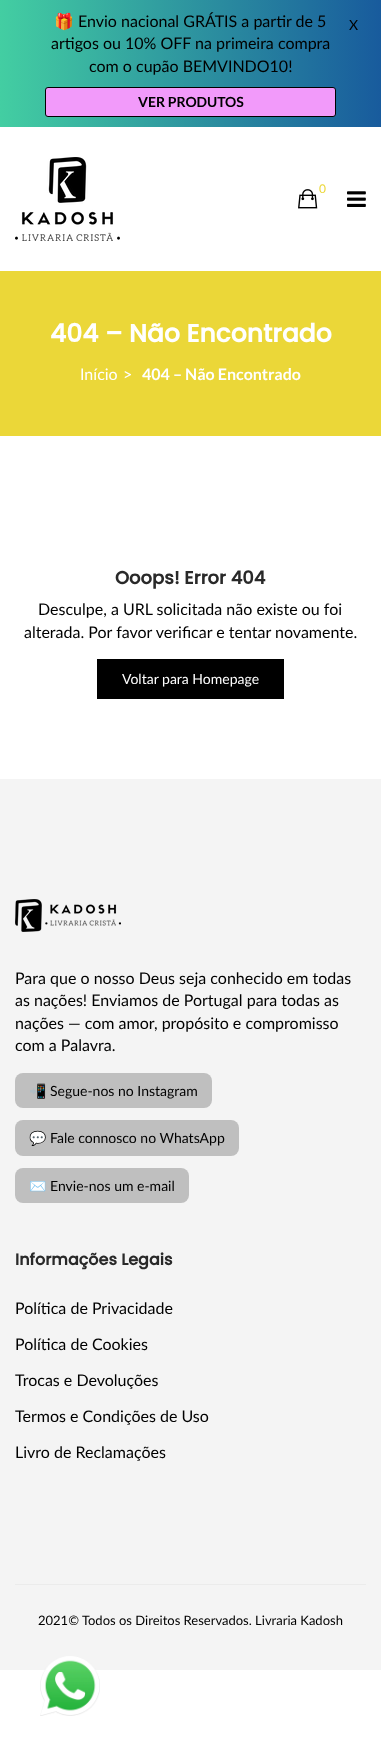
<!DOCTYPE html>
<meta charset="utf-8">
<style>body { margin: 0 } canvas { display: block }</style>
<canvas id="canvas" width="381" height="1756"></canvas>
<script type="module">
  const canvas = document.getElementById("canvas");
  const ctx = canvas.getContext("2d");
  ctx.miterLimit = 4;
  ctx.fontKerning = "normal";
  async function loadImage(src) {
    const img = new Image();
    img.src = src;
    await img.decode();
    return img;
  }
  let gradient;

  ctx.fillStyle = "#ffffff";
  ctx.fillRect(0, 0, 381, 1756);
  gradient = ctx.createLinearGradient(0, 64, 381, 63);
  gradient.addColorStop(0, "#43cea2");
  gradient.addColorStop(1, "#185b9d");
  ctx.fillStyle = gradient;
  ctx.fillRect(0, 0, 381, 127);
  ctx.font = "16px Noto Color Emoji";
  ctx.fillStyle = "#000000";
  ctx.fillText("🎁", 54, 27);
  ctx.font = "16px Lato";
  ctx.fillText("Envio nacional GRÁTIS a partir de 5", 78, 27);
  ctx.fillText("artigos ou 10% OFF na primeira compra", 51, 49);
  ctx.fillText("com o cupão BEMVINDO10!", 89, 72);
  ctx.fillStyle = "#f29afa";
  ctx.beginPath();
  ctx.roundRect(45.5, 87.5, 290, 29, 2.5);
  ctx.fill();
  ctx.strokeStyle = "#000000";
  ctx.stroke();
  ctx.font = "bold 14px Lato";
  ctx.fillStyle = "#000000";
  ctx.fillText("VER PRODUTOS", 138, 107);
  ctx.font = "14px Lato";
  ctx.fillText("X", 349, 30);
  ctx.drawImage(await loadImage("img1.png"), 15, 157, 105, 84);
  ctx.drawImage(await loadImage("img2.png"), 298, 189, 20, 20);
  ctx.font = "12px Lato";
  ctx.fillStyle = "#ebd738";
  ctx.fillText("0", 319, 193);
  ctx.drawImage(await loadImage("img3.png"), 347, 191, 19, 16);
  ctx.fillRect(0, 271, 381, 165);
  ctx.font = "bold 25px Poppins";
  ctx.fillStyle = "#ffffff";
  ctx.fillText("404 – Não Encontrado", 50, 342);
  ctx.font = "16px Lato";
  ctx.fillText("Início", 80, 380);
  ctx.fillText(">", 123, 380);
  ctx.font = "bold 16px Lato";
  ctx.fillText("404 – Não Encontrado", 142, 380);
  ctx.font = "bold 18px Poppins";
  ctx.fillStyle = "#292929";
  ctx.fillText("Ooops! Error 404", 115, 584);
  ctx.font = "16px Lato";
  ctx.fillStyle = "#000000";
  ctx.fillText("Desculpe, a URL solicitada não existe ou foi", 38, 615);
  ctx.fillText("alterada. Por favor verificar e tentar novamente.", 24, 638);
  ctx.fillRect(97, 659, 187, 40);
  ctx.font = "14px Lato";
  ctx.fillStyle = "#ffffff";
  ctx.fillText("Voltar para Homepage", 122, 684);
  ctx.fillStyle = "#f4f4f4";
  ctx.fillRect(0, 779, 381, 891);
  ctx.drawImage(await loadImage("img4.png"), 15, 899, 106, 33);
  ctx.font = "16px Lato";
  ctx.fillStyle = "#000000";
  ctx.fillText("Para que o nosso Deus seja conhecido em todas", 15, 984);
  ctx.fillText("as nações! Enviamos de Portugal para todas as", 15, 1006);
  ctx.fillText("nações — com amor, propósito e compromisso", 15, 1029);
  ctx.fillText("com a Palavra.", 15, 1051);
  ctx.fillStyle = "#bfbfbf";
  ctx.beginPath();
  ctx.roundRect(15, 1073, 197, 35, 8);
  ctx.fill();
  ctx.font = "14px Noto Color Emoji";
  ctx.fillStyle = "#000000";
  ctx.fillText("📲", 29, 1096);
  ctx.font = "14px Lato";
  ctx.fillText("Segue-nos no Instagram", 50, 1096);
  ctx.fillStyle = "#bfbfbf";
  ctx.beginPath();
  ctx.roundRect(15, 1120, 224, 36, 8);
  ctx.fill();
  ctx.font = "14px Noto Color Emoji";
  ctx.fillStyle = "#000000";
  ctx.fillText("💬", 29, 1143);
  ctx.font = "14px Lato";
  ctx.fillText("Fale connosco no WhatsApp", 50, 1143);
  ctx.fillStyle = "#bfbfbf";
  ctx.beginPath();
  ctx.roundRect(15, 1168, 174, 35, 8);
  ctx.fill();
  ctx.font = "14px Noto Color Emoji";
  ctx.fillStyle = "#000000";
  ctx.fillText("✉️", 29, 1191);
  ctx.font = "14px Lato";
  ctx.fillText("Envie-nos um e-mail", 50, 1191);
  ctx.font = "bold 16px Poppins";
  ctx.fillStyle = "#292929";
  ctx.fillText("Informações Legais", 15, 1265);
  ctx.font = "16px Lato";
  ctx.fillStyle = "#000000";
  ctx.fillText("Política de Privacidade", 15, 1314);
  ctx.fillText("Política de Cookies", 15, 1350);
  ctx.fillText("Trocas e Devoluções", 15, 1386);
  ctx.fillText("Termos e Condições de Uso", 15, 1422);
  ctx.fillText("Livro de Reclamações", 15, 1458);
  ctx.fillStyle = "#ebebeb";
  ctx.fillRect(15, 1584, 351, 1);
  ctx.font = "13px Lato";
  ctx.fillStyle = "#000000";
  ctx.fillText("2021© Todos os Direitos Reservados. Livraria Kadosh", 38, 1625);
  ctx.drawImage(await loadImage("img5.png"), 40, 1656, 60, 60);
</script>
